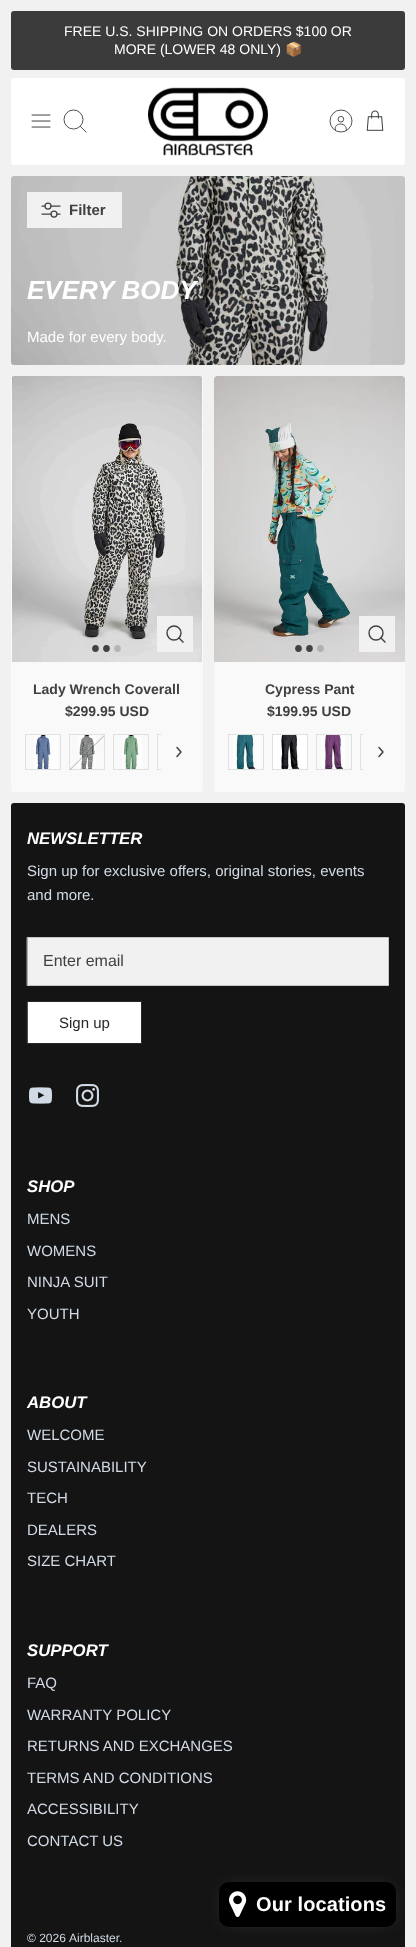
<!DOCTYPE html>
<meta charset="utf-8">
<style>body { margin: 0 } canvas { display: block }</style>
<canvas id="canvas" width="416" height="1947"></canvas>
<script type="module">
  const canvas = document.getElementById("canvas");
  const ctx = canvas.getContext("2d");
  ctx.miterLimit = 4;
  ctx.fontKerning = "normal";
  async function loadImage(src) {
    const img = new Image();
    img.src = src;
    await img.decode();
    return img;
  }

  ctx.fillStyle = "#f1f1f1";
  ctx.fillRect(0, 0, 416, 1947);
  ctx.fillStyle = "#3b3b3b";
  ctx.beginPath();
  ctx.roundRect(11, 11, 394, 59, 3);
  ctx.fill();
  ctx.font = "14px Liberation Sans";
  ctx.fillStyle = "#ffffff";
  ctx.fillText("FREE U.S. SHIPPING ON ORDERS $100 OR", 64, 36);
  ctx.fillText("MORE (LOWER 48 ONLY)", 114, 54);
  ctx.font = "14px Noto Color Emoji";
  ctx.fillText("📦", 285, 54);
  ctx.beginPath();
  ctx.roundRect(11, 78, 394, 87, 3);
  ctx.fill();
  ctx.drawImage(await loadImage("img1.png"), 31, 114, 20, 14);
  ctx.beginPath();
  ctx.arc(73.5, 119.5, 9.5, 0, Math.PI * 2);
  ctx.strokeStyle = "#3c4043";
  ctx.lineWidth = 0.9;
  ctx.stroke();
  ctx.beginPath();
  ctx.moveTo(80.5, 126.5);
  ctx.lineTo(86, 132);
  ctx.lineCap = "square";
  ctx.stroke();
  ctx.drawImage(await loadImage("img2.png"), 148, 87, 120, 69);
  ctx.beginPath();
  ctx.moveTo(346, 131);
  ctx.bezierCurveTo(348.5, 122, 333, 121.5, 335.5, 130.5);
  ctx.lineCap = "butt";
  ctx.stroke();
  ctx.beginPath();
  ctx.arc(340.9, 119.2, 2.8, 0, Math.PI * 2);
  ctx.stroke();
  ctx.beginPath();
  ctx.arc(341, 121, 11, 0, Math.PI * 2);
  ctx.stroke();
  ctx.drawImage(await loadImage("img3.png"), 366, 110, 18, 21);
  ctx.fillStyle = "#f9f9f9";
  ctx.beginPath();
  ctx.roundRect(11, 176, 394, 189, 3);
  ctx.fill();
  ctx.fillStyle = "rgba(18, 18, 18, 0.1)";
  ctx.beginPath();
  ctx.roundRect(11, 176, 394, 189, 3);
  ctx.fill();
  ctx.drawImage(await loadImage("img4.png"), 11, 176, 394, 189);
  ctx.beginPath();
  ctx.roundRect(11, 176, 394, 189, 3);
  ctx.fill();
  ctx.fillStyle = "#f1f1f1";
  ctx.fillRect(27, 192, 95, 36);
  ctx.drawImage(await loadImage("img5.png"), 41, 202, 20, 16);
  ctx.font = "bold 15px Liberation Sans";
  ctx.fillStyle = "#404040";
  ctx.fillText("Filter", 69, 215);
  ctx.font = "italic bold 26px Liberation Sans";
  ctx.fillStyle = "#ffffff";
  ctx.fillText("EVERY BODY", 27, 299);
  ctx.font = "15px Liberation Sans";
  ctx.fillText("Made for every body.", 27, 342);
  ctx.fillStyle = "#f9f9f9";
  ctx.beginPath();
  ctx.roundRect(11, 376, 192, 416, 3);
  ctx.fill();
  ctx.drawImage(await loadImage("img6.png"), 12, 376, 190, 286);
  ctx.fillStyle = "#424242";
  ctx.beginPath();
  ctx.moveTo(95.5, 645);
  ctx.bezierCurveTo(100, 645, 100, 652, 95.5, 652);
  ctx.bezierCurveTo(91, 652, 91, 645, 95.5, 645);
  ctx.closePath();
  ctx.moveTo(106.5, 645);
  ctx.bezierCurveTo(111, 645, 111, 652, 106.5, 652);
  ctx.bezierCurveTo(102, 652, 102, 645, 106.5, 645);
  ctx.closePath();
  ctx.fill();
  ctx.fillStyle = "#b5b5b5";
  ctx.beginPath();
  ctx.moveTo(117.5, 645);
  ctx.bezierCurveTo(122, 645, 122, 652, 117.5, 652);
  ctx.bezierCurveTo(113, 652, 113, 645, 117.5, 645);
  ctx.closePath();
  ctx.fill();
  ctx.fillStyle = "#f1f1f1";
  ctx.fillRect(157, 616, 36, 36);
  ctx.beginPath();
  ctx.arc(174, 633, 7, 0, Math.PI * 2);
  ctx.strokeStyle = "#404040";
  ctx.lineWidth = 1.4;
  ctx.stroke();
  ctx.beginPath();
  ctx.moveTo(179, 638);
  ctx.lineTo(183, 642);
  ctx.lineCap = "square";
  ctx.stroke();
  ctx.font = "bold 14px Liberation Sans";
  ctx.fillStyle = "#404040";
  ctx.fillText("Lady Wrench Coverall", 33, 694);
  ctx.fillText("$299.95 USD", 65, 716);
  ctx.strokeStyle = "#e0e0e0";
  ctx.lineWidth = 1;
  ctx.strokeRect(25.5, 734.5, 35, 35);
  ctx.drawImage(await loadImage("img7.png"), 34, 735, 24, 34);
  ctx.strokeRect(69.5, 734.5, 35, 35);
  ctx.drawImage(await loadImage("img8.png"), 78, 735, 18, 34);
  ctx.fillStyle = "rgba(66, 66, 66, 0.3)";
  ctx.beginPath();
  ctx.moveTo(69.5, 769.5);
  ctx.lineTo(103.5, 735.5);
  ctx.lineTo(104.5, 736);
  ctx.lineTo(70.5, 770);
  ctx.closePath();
  ctx.fill();
  ctx.strokeRect(113.5, 734.5, 35, 35);
  ctx.drawImage(await loadImage("img9.png"), 122, 735, 20, 34);
  ctx.save();
  ctx.beginPath();
  ctx.rect(21, 728, 140, 48);
  ctx.clip();
  ctx.strokeRect(157.5, 734.5, 35, 35);
  ctx.restore();
  ctx.beginPath();
  ctx.moveTo(177, 756.5);
  ctx.lineTo(181, 752);
  ctx.lineTo(177, 747.5);
  ctx.strokeStyle = "#424242";
  ctx.lineWidth = 1.5;
  ctx.lineCap = "round";
  ctx.lineJoin = "round";
  ctx.stroke();
  ctx.fillStyle = "#f9f9f9";
  ctx.beginPath();
  ctx.roundRect(214, 376, 191, 416, 3);
  ctx.fill();
  ctx.drawImage(await loadImage("img10.png"), 214, 376, 191, 286);
  ctx.fillStyle = "#424242";
  ctx.beginPath();
  ctx.moveTo(298.5, 645);
  ctx.bezierCurveTo(303, 645, 303, 652, 298.5, 652);
  ctx.bezierCurveTo(294, 652, 294, 645, 298.5, 645);
  ctx.closePath();
  ctx.moveTo(309.5, 645);
  ctx.bezierCurveTo(314, 645, 314, 652, 309.5, 652);
  ctx.bezierCurveTo(305, 652, 305, 645, 309.5, 645);
  ctx.closePath();
  ctx.fill();
  ctx.fillStyle = "#b0b0b0";
  ctx.beginPath();
  ctx.moveTo(320.5, 645);
  ctx.bezierCurveTo(325, 645, 325, 652, 320.5, 652);
  ctx.bezierCurveTo(316, 652, 316, 645, 320.5, 645);
  ctx.closePath();
  ctx.fill();
  ctx.fillStyle = "#f1f1f1";
  ctx.fillRect(359, 616, 36, 36);
  ctx.beginPath();
  ctx.arc(376, 633, 7, 0, Math.PI * 2);
  ctx.strokeStyle = "#404040";
  ctx.lineWidth = 1.4;
  ctx.stroke();
  ctx.beginPath();
  ctx.moveTo(381, 638);
  ctx.lineTo(385, 642);
  ctx.lineCap = "square";
  ctx.lineJoin = "miter";
  ctx.stroke();
  ctx.fillStyle = "#404040";
  ctx.fillText("Cypress Pant", 265, 694);
  ctx.fillText("$199.95 USD", 267, 716);
  ctx.strokeStyle = "#e0e0e0";
  ctx.lineWidth = 1;
  ctx.strokeRect(228.5, 734.5, 35, 35);
  ctx.drawImage(await loadImage("img11.png"), 233, 735, 28, 34);
  ctx.strokeRect(272.5, 734.5, 35, 35);
  ctx.drawImage(await loadImage("img12.png"), 273, 735, 34, 34);
  ctx.strokeRect(316.5, 734.5, 35, 35);
  ctx.drawImage(await loadImage("img13.png"), 321, 735, 24, 34);
  ctx.save();
  ctx.beginPath();
  ctx.rect(224, 728, 139, 48);
  ctx.clip();
  ctx.strokeRect(360.5, 734.5, 35, 35);
  ctx.restore();
  ctx.beginPath();
  ctx.moveTo(379, 756.5);
  ctx.lineTo(383, 752);
  ctx.lineTo(379, 747.5);
  ctx.strokeStyle = "#424242";
  ctx.lineWidth = 1.5;
  ctx.lineCap = "round";
  ctx.lineJoin = "round";
  ctx.stroke();
  ctx.fillStyle = "#141414";
  ctx.beginPath();
  ctx.roundRect(11, 803, 394, 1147, 3);
  ctx.fill();
  ctx.font = "italic bold 16.75px Liberation Sans";
  ctx.fillStyle = "#ffffff";
  ctx.fillText("NEWSLETTER", 27, 844);
  ctx.font = "15px Liberation Sans";
  ctx.fillStyle = "#d2dbe5";
  ctx.fillText("Sign up for exclusive offers, original stories, events", 27, 876);
  ctx.fillText("and more.", 27, 900);
  ctx.fillStyle = "#f1f1f1";
  ctx.beginPath();
  ctx.rect(27.5, 937.5, 361, 48);
  ctx.fill();
  ctx.strokeStyle = "#c5c5c5";
  ctx.lineWidth = 1;
  ctx.lineJoin = "miter";
  ctx.stroke();
  ctx.font = "16px Liberation Sans";
  ctx.fillStyle = "#404040";
  ctx.fillText("Enter email", 43, 966);
  ctx.fillStyle = "#ffffff";
  ctx.beginPath();
  ctx.rect(27.5, 1001.5, 114, 42);
  ctx.fill();
  ctx.strokeStyle = "#282828";
  ctx.stroke();
  ctx.font = "15px Liberation Sans";
  ctx.fillStyle = "#282828";
  ctx.fillText("Sign up", 59, 1028);
  ctx.drawImage(await loadImage("img14.png"), 29, 1087, 23, 17);
  ctx.drawImage(await loadImage("img15.png"), 76, 1084, 23, 23);
  ctx.font = "italic bold 16.75px Liberation Sans";
  ctx.fillStyle = "#ffffff";
  ctx.fillText("SHOP", 27, 1192);
  ctx.font = "15px Liberation Sans";
  ctx.fillStyle = "#d2dbe5";
  ctx.fillText("MENS", 27, 1224);
  ctx.fillText("WOMENS", 27, 1256);
  ctx.fillText("NINJA SUIT", 27, 1287);
  ctx.fillText("YOUTH", 27, 1319);
  ctx.font = "italic bold 16.75px Liberation Sans";
  ctx.fillStyle = "#ffffff";
  ctx.fillText("ABOUT", 27, 1408);
  ctx.font = "15px Liberation Sans";
  ctx.fillStyle = "#d2dbe5";
  ctx.fillText("WELCOME", 27, 1440);
  ctx.fillText("SUSTAINABILITY", 27, 1472);
  ctx.fillText("TECH", 27, 1503);
  ctx.fillText("DEALERS", 27, 1535);
  ctx.fillText("SIZE CHART", 27, 1566);
  ctx.font = "italic bold 16.75px Liberation Sans";
  ctx.fillStyle = "#ffffff";
  ctx.fillText("SUPPORT", 27, 1656);
  ctx.font = "15px Liberation Sans";
  ctx.fillStyle = "#d2dbe5";
  ctx.fillText("FAQ", 27, 1688);
  ctx.fillText("WARRANTY POLICY", 27, 1720);
  ctx.fillText("RETURNS AND EXCHANGES", 27, 1751);
  ctx.fillText("TERMS AND CONDITIONS", 27, 1783);
  ctx.fillText("ACCESSIBILITY", 27, 1814);
  ctx.fillText("CONTACT US", 27, 1846);
  ctx.font = "12px Liberation Sans";
  ctx.fillText("© 2026", 27, 1942);
  ctx.fillText("Airblaster", 69, 1942);
  ctx.fillText(".", 119, 1942);
  ctx.fillStyle = "#5a5a5a";
  ctx.filter = "blur(9px)";
  ctx.beginPath();
  ctx.roundRect(228, 1891, 159, 27, 1);
  ctx.fill();
  ctx.filter = "none";
  ctx.fillStyle = "#000000";
  ctx.beginPath();
  ctx.roundRect(219, 1882, 177, 45, 10);
  ctx.fill();
  ctx.drawImage(await loadImage("img16.png"), 229, 1891, 18, 26);
  ctx.letterSpacing = "0.1px";
  ctx.font = "bold 20px Liberation Sans";
  ctx.fillStyle = "#ffffff";
  ctx.fillText("Our locations", 256, 1911);
</script>
